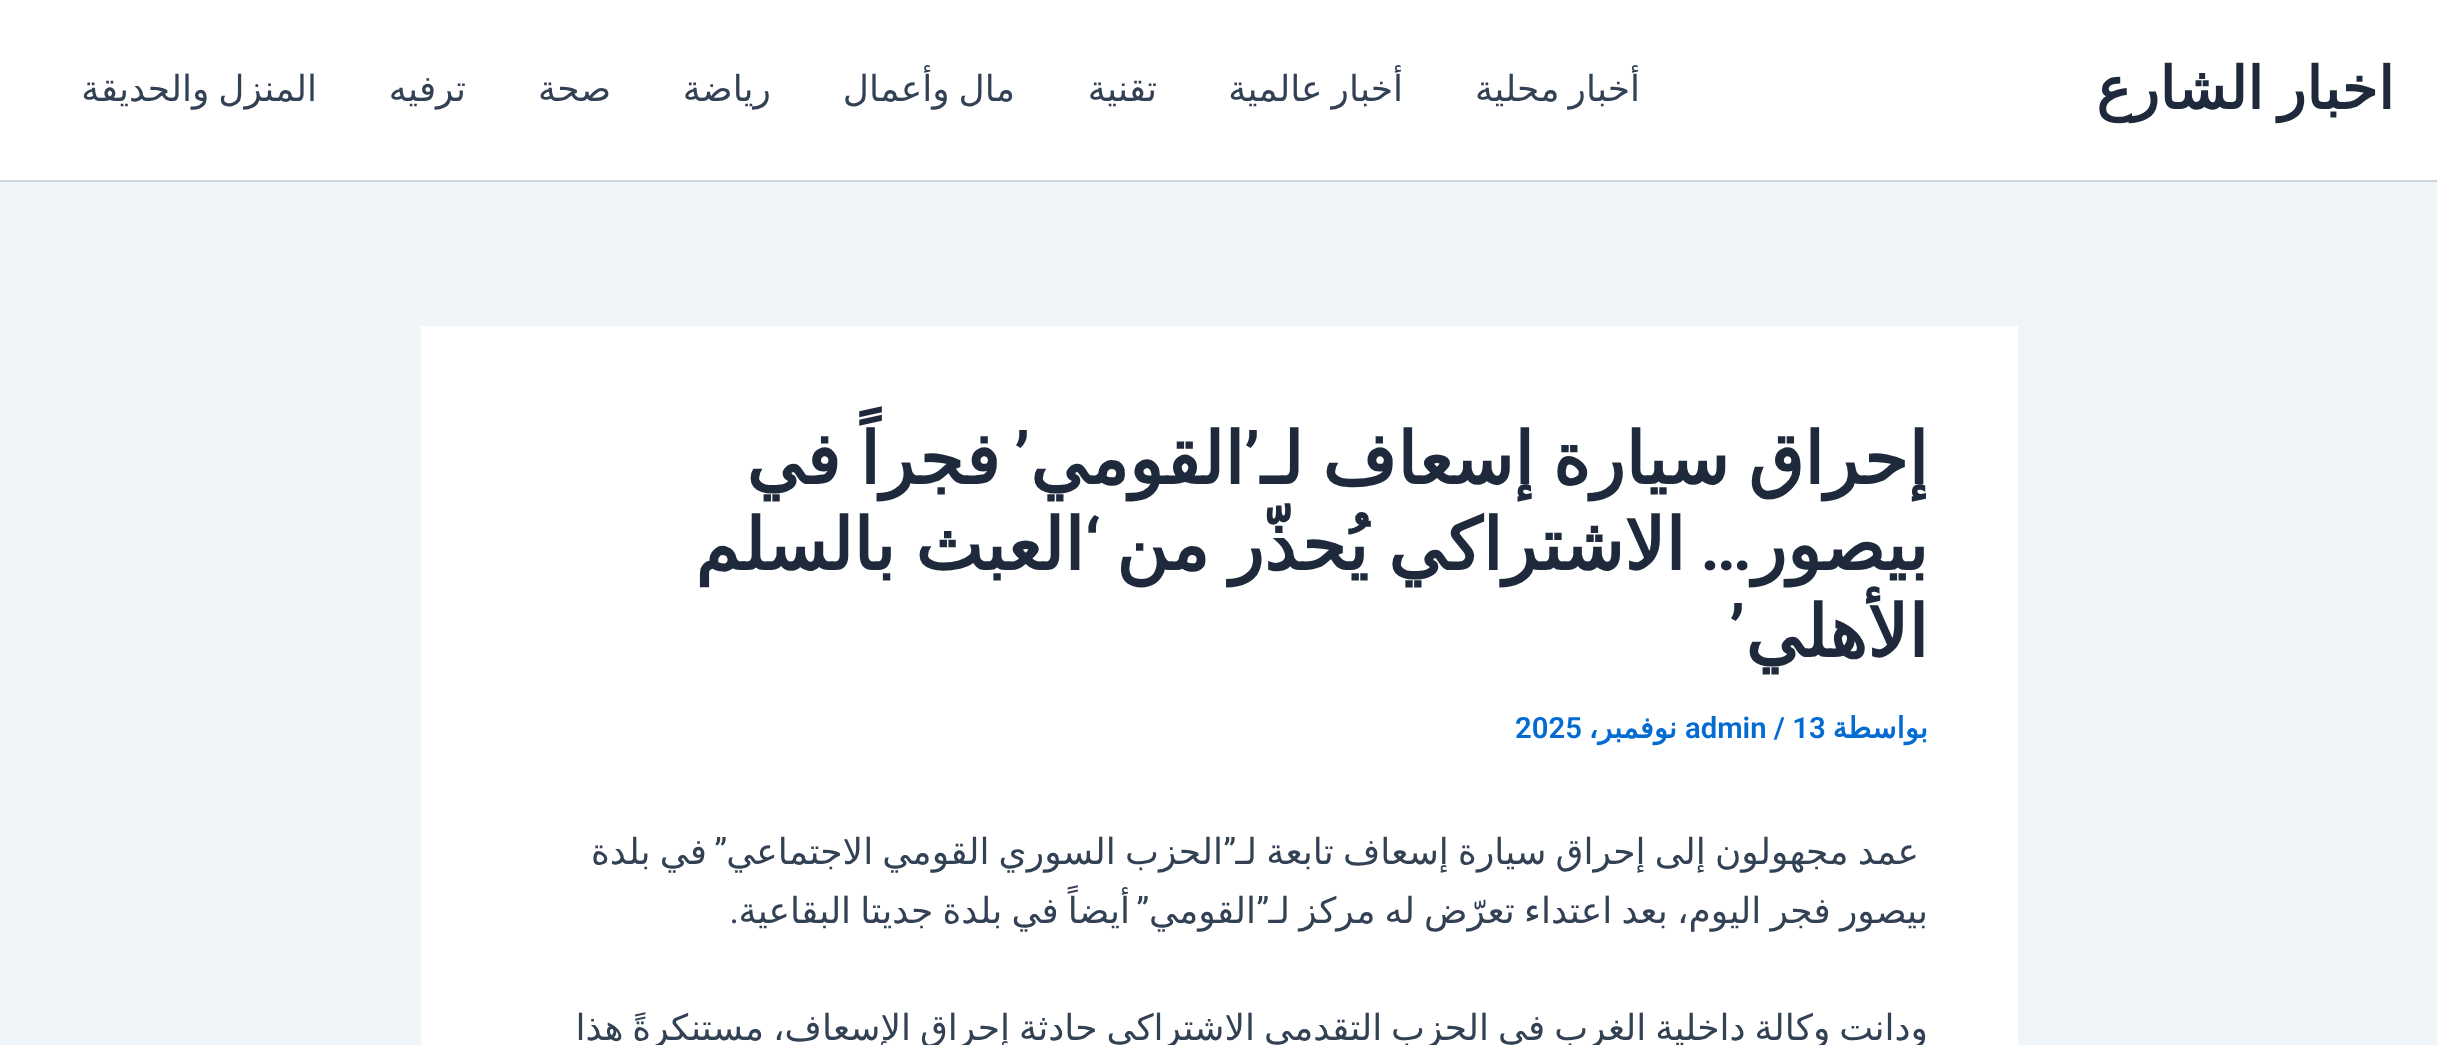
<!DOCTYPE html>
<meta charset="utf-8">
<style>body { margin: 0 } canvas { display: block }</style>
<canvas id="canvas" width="2437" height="1045"></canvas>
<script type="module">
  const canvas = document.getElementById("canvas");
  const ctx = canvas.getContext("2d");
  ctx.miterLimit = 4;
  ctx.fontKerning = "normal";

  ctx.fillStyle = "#f0f5fa";
  ctx.fillRect(0, 0, 2437, 1045);
  ctx.fillStyle = "#ffffff";
  ctx.fillRect(0, 0, 2437, 180);
  ctx.fillStyle = "#d1d5db";
  ctx.fillRect(0, 180, 2437, 2);
  ctx.wordSpacing = "-4px";
  ctx.direction = "rtl";
  ctx.font = "bold 58.5px DejaVu Sans";
  ctx.fillStyle = "#1e293b";
  ctx.fillText("اخبار الشارع", 2394, 109);
  ctx.wordSpacing = "-2.5px";
  ctx.font = "36px DejaVu Sans";
  ctx.fillStyle = "#334155";
  ctx.fillText("أخبار محلية", 1640, 101);
  ctx.fillText("أخبار عالمية", 1403, 101);
  ctx.wordSpacing = "0px";
  ctx.fillText("تقنية", 1157, 101);
  ctx.wordSpacing = "-2.5px";
  ctx.fillText("مال وأعمال", 1015, 101);
  ctx.wordSpacing = "0px";
  ctx.fillText("رياضة", 771, 101);
  ctx.fillText("صحة", 611, 101);
  ctx.fillText("ترفيه", 466, 101);
  ctx.wordSpacing = "-2.5px";
  ctx.fillText("المنزل والحديقة", 317, 101);
  ctx.fillStyle = "#ffffff";
  ctx.fillRect(421, 326, 1597, 719);
  ctx.wordSpacing = "-4px";
  ctx.font = "bold 72px DejaVu Sans";
  ctx.fillStyle = "#1e293b";
  ctx.fillText("إحراق سيارة إسعاف لـ", 1928, 484);
  ctx.wordSpacing = "0px";
  ctx.font = "600 72px Roboto";
  ctx.fillText("’", 1260, 484);
  ctx.font = "bold 72px DejaVu Sans";
  ctx.fillText("القومي", 1244, 484);
  ctx.font = "600 72px Roboto";
  ctx.fillText("’", 1030, 484);
  ctx.wordSpacing = "-4px";
  ctx.font = "bold 72px DejaVu Sans";
  ctx.fillText("فجراً في", 1000, 484);
  ctx.wordSpacing = "0px";
  ctx.fillText("بيصور", 1928, 570);
  ctx.font = "600 72px Roboto";
  ctx.fillText("…", 1752, 570);
  ctx.wordSpacing = "-3px";
  ctx.font = "bold 72px DejaVu Sans";
  ctx.fillText("الاشتراكي يُحذّر من", 1685, 570);
  ctx.wordSpacing = "0px";
  ctx.font = "600 72px Roboto";
  ctx.fillText("‘", 1101, 570);
  ctx.wordSpacing = "-3px";
  ctx.font = "bold 72px DejaVu Sans";
  ctx.fillText("العبث بالسلم", 1084, 570);
  ctx.wordSpacing = "0px";
  ctx.fillText("الأهلي", 1928, 657);
  ctx.font = "600 72px Roboto";
  ctx.fillText("’", 1745, 657);
  ctx.font = "bold 29.25px DejaVu Sans";
  ctx.fillStyle = "#046bd2";
  ctx.fillText("بواسطة", 1928, 738);
  ctx.direction = "ltr";
  ctx.font = "600 29.25px Roboto";
  ctx.fillText("admin / 13", 1685, 738);
  ctx.direction = "rtl";
  ctx.font = "bold 29.25px DejaVu Sans";
  ctx.fillText("نوفمبر،", 1677, 738);
  ctx.direction = "ltr";
  ctx.font = "600 29.25px Roboto";
  ctx.fillText("2025", 1515, 738);
  ctx.wordSpacing = "-2.25px";
  ctx.direction = "rtl";
  ctx.font = "36px DejaVu Sans";
  ctx.fillStyle = "#334155";
  ctx.fillText("عمد مجهولون إلى إحراق سيارة إسعاف تابعة لـ", 1919, 864);
  ctx.fillText("الحزب السوري القومي الاجتماعي", 1223, 864);
  ctx.wordSpacing = "0px";
  ctx.font = "36px Roboto";
  ctx.fillText("”", 1236, 864);
  ctx.fillText("”", 727, 864);
  ctx.wordSpacing = "-2.25px";
  ctx.font = "36px DejaVu Sans";
  ctx.fillText("في بلدة", 707, 864);
  ctx.fillText("بيصور فجر اليوم، بعد اعتداء تعرّض له مركز لـ", 1928, 923);
  ctx.wordSpacing = "0px";
  ctx.font = "36px Roboto";
  ctx.fillText("”", 1269, 923);
  ctx.font = "36px DejaVu Sans";
  ctx.fillText("القومي", 1256, 923);
  ctx.wordSpacing = "-2.25px";
  ctx.fillText("أيضاً في بلدة جديتا البقاعية", 1130, 923);
  ctx.wordSpacing = "0px";
  ctx.font = "36px Roboto";
  ctx.fillText("”", 1149, 923);
  ctx.fillText(".", 739, 923);
  ctx.wordSpacing = "-2.5px";
  ctx.font = "36px DejaVu Sans";
  ctx.fillText("ودانت وكالة داخلية الغرب في الحزب التقدمي الاشتراكي حادثة إحراق الإسعاف، مستنكرةً هذا", 1928, 1040);
</script>
